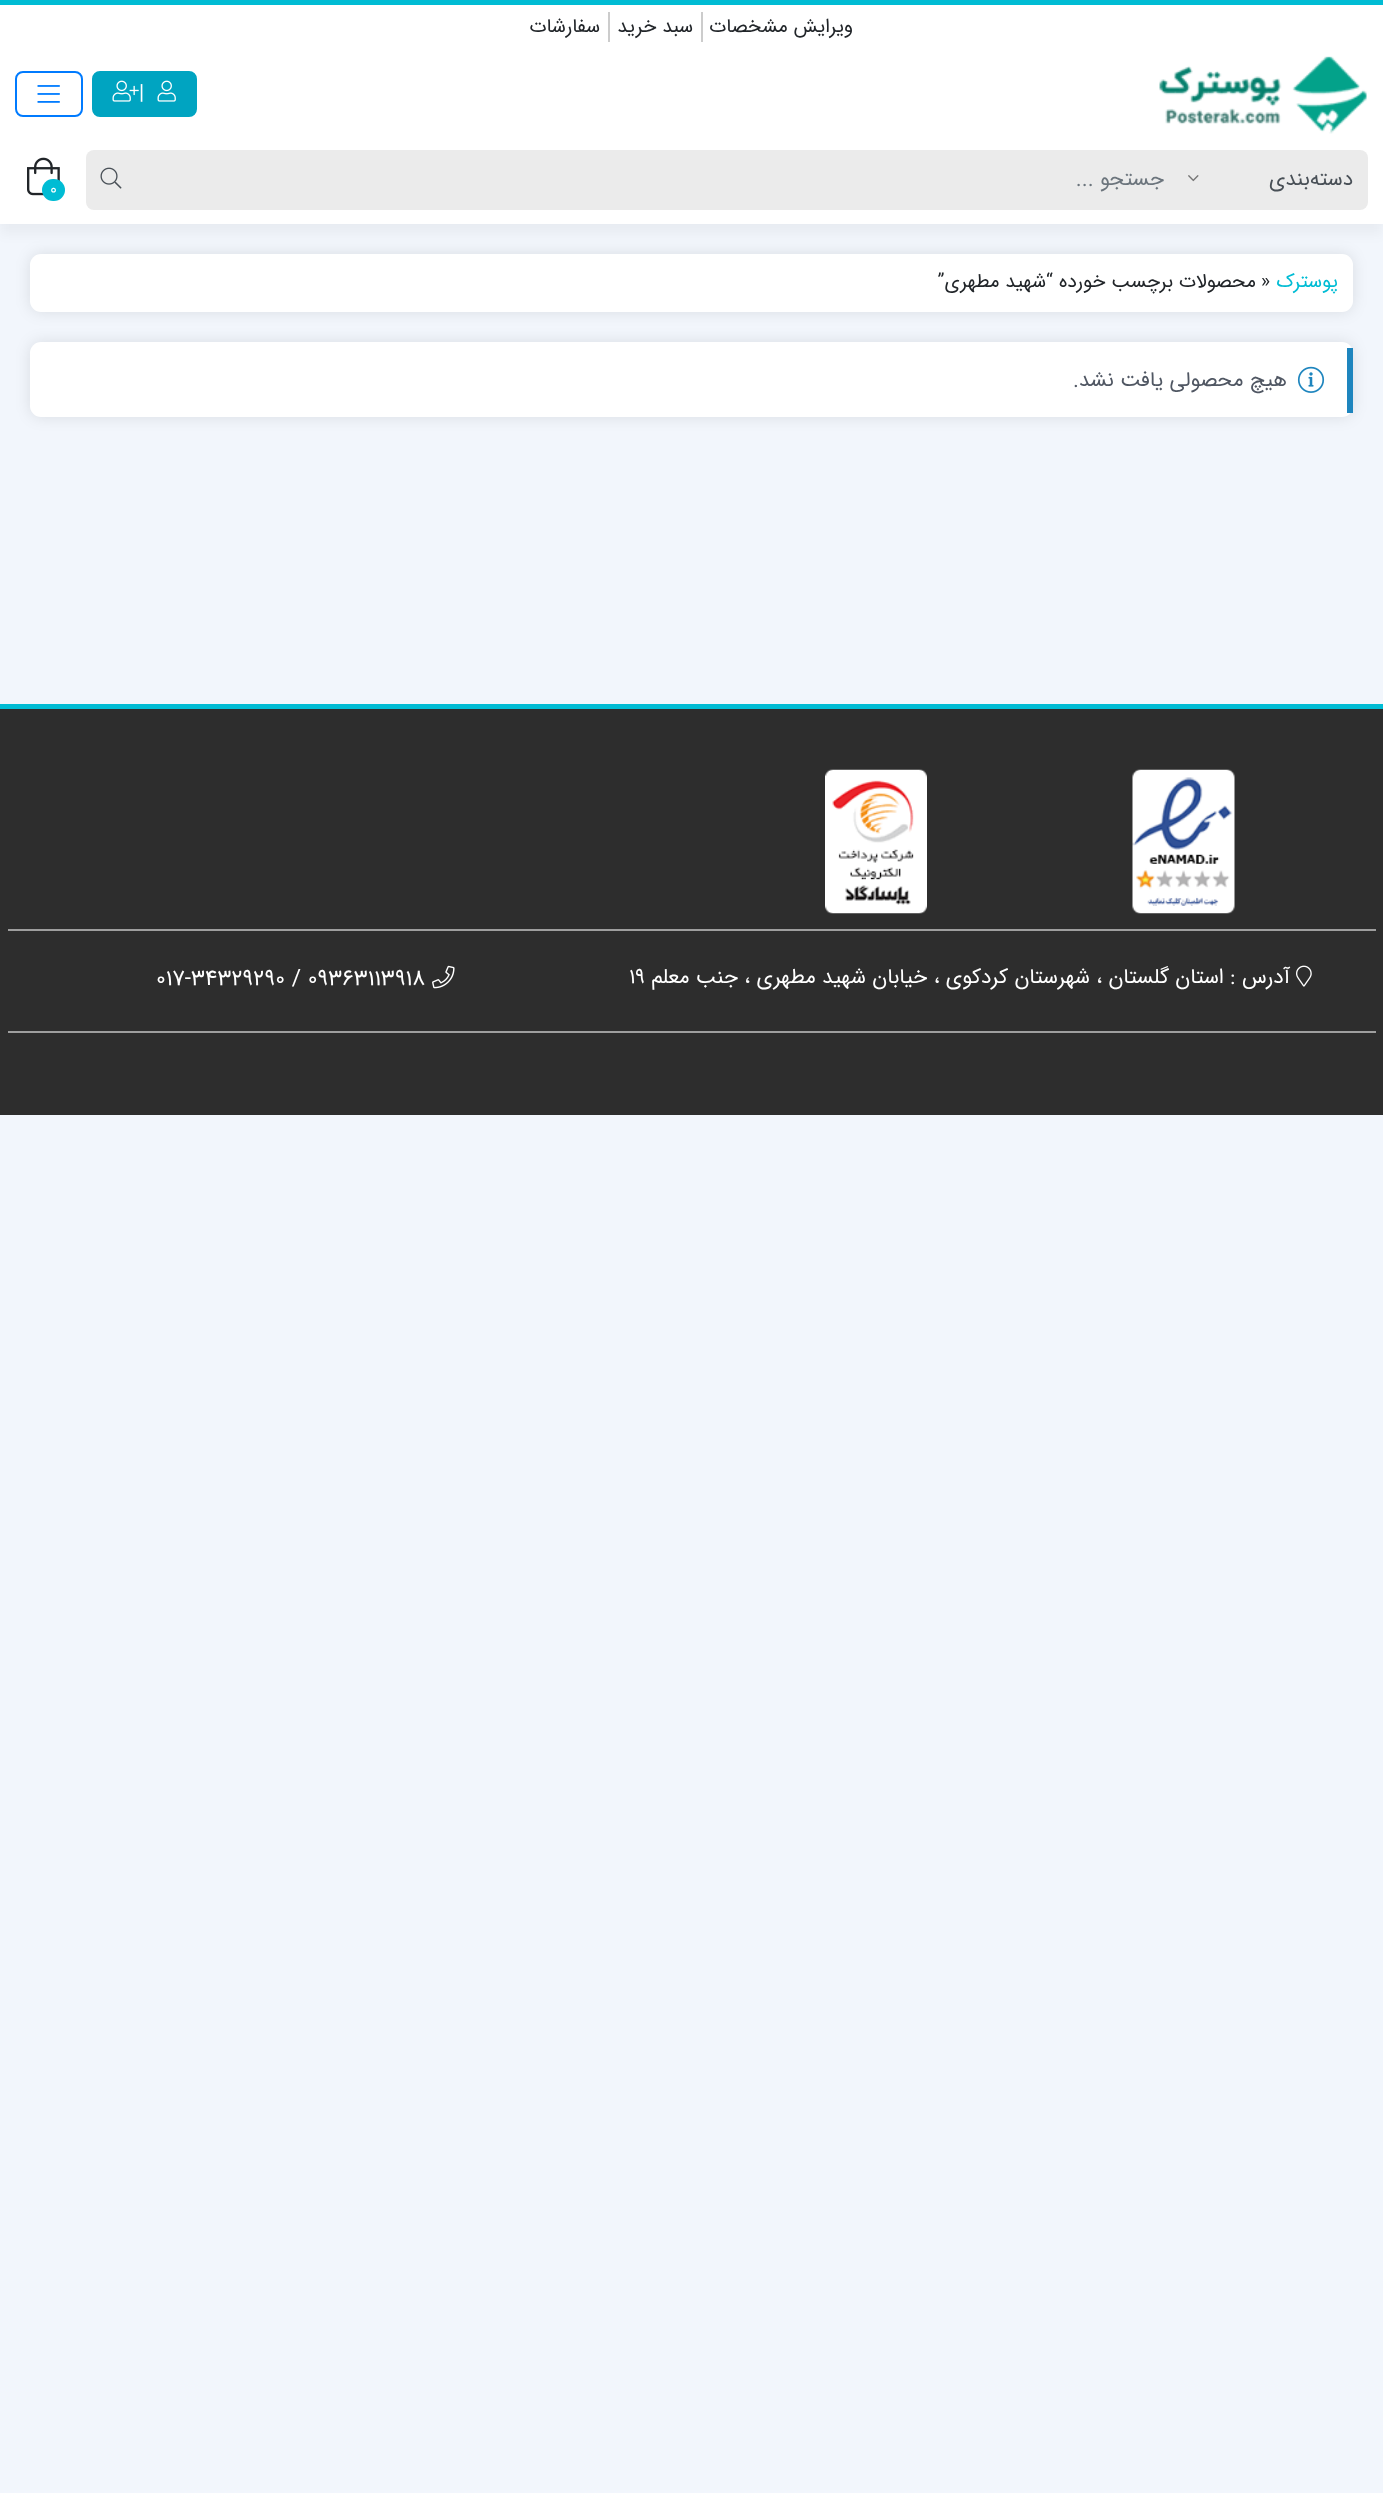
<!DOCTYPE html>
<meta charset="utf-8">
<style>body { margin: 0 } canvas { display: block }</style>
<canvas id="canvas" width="1383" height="2493"></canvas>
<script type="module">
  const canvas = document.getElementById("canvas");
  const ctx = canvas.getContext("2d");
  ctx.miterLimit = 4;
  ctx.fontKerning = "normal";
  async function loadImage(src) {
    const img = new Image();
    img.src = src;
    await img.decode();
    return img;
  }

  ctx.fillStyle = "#f2f6fc";
  ctx.fillRect(0, 0, 1383, 2493);
  ctx.fillStyle = "#00bcd4";
  ctx.fillRect(0, 0, 1383, 5);
  ctx.fillStyle = "rgba(0, 0, 0, 0.04)";
  ctx.filter = "blur(6px)";
  ctx.beginPath();
  ctx.rect(0, 15, 1383, 219);
  ctx.fill();
  ctx.filter = "none";
  ctx.fillStyle = "#ffffff";
  ctx.fillRect(0, 5, 1383, 219);
  ctx.fillStyle = "#cccccc";
  ctx.fillRect(701, 12, 2, 30);
  ctx.direction = "rtl";
  ctx.font = "19.5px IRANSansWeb";
  ctx.fillStyle = "#212529";
  ctx.fillText("ویرایش مشخصات", 853, 32);
  ctx.fillStyle = "#cccccc";
  ctx.fillRect(608, 12, 2, 30);
  ctx.fillStyle = "#212529";
  ctx.fillText("سبد خرید", 693, 32);
  ctx.fillText("سفارشات", 600, 32);
  ctx.drawImage(await loadImage("img1.png"), 1159, 56, 208, 78);
  ctx.fillStyle = "#00a4c1";
  ctx.beginPath();
  ctx.roundRect(93, 72, 103, 44, 7);
  ctx.fill();
  ctx.strokeStyle = "#00a4c1";
  ctx.lineWidth = 2;
  ctx.stroke();
  ctx.drawImage(await loadImage("img2.png"), 157, 80, 19, 22);
  ctx.direction = "ltr";
  ctx.font = "21px IRANSansWeb";
  ctx.fillStyle = "#ffffff";
  ctx.fillText("|", 139, 99);
  ctx.drawImage(await loadImage("img3.png"), 112, 80, 27, 22);
  ctx.beginPath();
  ctx.roundRect(16, 72, 66, 44, 7);
  ctx.strokeStyle = "#007bff";
  ctx.stroke();
  ctx.drawImage(await loadImage("img4.png"), 37, 85, 23, 18);
  ctx.fillStyle = "#ebebeb";
  ctx.beginPath();
  ctx.roundRect(1188, 150, 180, 60, [0, 8, 8, 0]);
  ctx.fill();
  ctx.direction = "rtl";
  ctx.fillStyle = "#495057";
  ctx.fillText("دسته‌بندی", 1353, 185);
  ctx.drawImage(await loadImage("img5.png"), 1188, 175, 11, 7);
  ctx.fillStyle = "#ebebeb";
  ctx.fillRect(146, 150, 1042, 60);
  ctx.fillStyle = "#6c757d";
  ctx.fillText("جستجو ...", 1164, 185);
  ctx.fillStyle = "#ebebeb";
  ctx.beginPath();
  ctx.roundRect(86, 150, 60, 60, [8, 0, 0, 8]);
  ctx.fill();
  ctx.drawImage(await loadImage("img6.png"), 100, 167, 22, 22);
  ctx.drawImage(await loadImage("img7.png"), 27, 157, 33, 39);
  ctx.fillStyle = "#00bcd4";
  ctx.beginPath();
  ctx.roundRect(42, 179, 23, 22, 11);
  ctx.fill();
  ctx.direction = "ltr";
  ctx.font = "16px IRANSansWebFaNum";
  ctx.fillStyle = "#ffffff";
  ctx.fillText("0", 50, 194);
  ctx.fillStyle = "rgba(0, 0, 0, 0.1)";
  ctx.filter = "blur(7.5px)";
  ctx.beginPath();
  ctx.roundRect(30, 254, 1323, 58, 11);
  ctx.fill();
  ctx.filter = "none";
  ctx.fillStyle = "#ffffff";
  ctx.beginPath();
  ctx.roundRect(30, 254, 1323, 58, 11);
  ctx.fill();
  ctx.direction = "rtl";
  ctx.font = "19.5px IRANSansWebFaNum";
  ctx.fillStyle = "#00bcd4";
  ctx.fillText("پوسترک", 1338, 287);
  ctx.direction = "ltr";
  ctx.fillStyle = "#212529";
  ctx.fillText("»", 1261, 287);
  ctx.direction = "rtl";
  ctx.fillText("محصولات برچسب خورده “شهید مطهری”", 1256, 287);
  ctx.fillStyle = "rgba(0, 0, 0, 0.1)";
  ctx.filter = "blur(7.5px)";
  ctx.beginPath();
  ctx.roundRect(30, 342, 1323, 75, 11);
  ctx.fill();
  ctx.filter = "none";
  ctx.fillStyle = "#ffffff";
  ctx.beginPath();
  ctx.roundRect(30, 342, 1323, 75, 11);
  ctx.fill();
  ctx.fillStyle = "#1e85be";
  ctx.fillRect(1347, 348, 6, 65);
  ctx.drawImage(await loadImage("img8.png"), 1297, 366, 28, 27);
  ctx.font = "21px IRANSansWebFaNum";
  ctx.fillStyle = "#505763";
  ctx.fillText("هیچ محصولی یافت نشد.", 1287, 386);
  ctx.fillStyle = "#2d2d2d";
  ctx.fillRect(0, 709, 1383, 406);
  ctx.fillStyle = "#00bcd4";
  ctx.fillRect(0, 704, 1383, 5);
  ctx.fillStyle = "#9e9e9e";
  ctx.fillRect(8, 929, 1368, 2);
  ctx.drawImage(await loadImage("img9.png"), 1132, 769, 103, 145);
  ctx.drawImage(await loadImage("img10.png"), 825, 769, 102, 145);
  ctx.fillRect(8, 1031, 1368, 2);
  ctx.drawImage(await loadImage("img11.png"), 1296, 965, 16, 22);
  ctx.fillStyle = "#ffffff";
  ctx.fillText("آدرس : استان گلستان ، شهرستان کردکوی ، خیابان شهید مطهری ، جنب معلم", 1290, 983);
  ctx.direction = "ltr";
  ctx.fillText("19", 629, 983);
  ctx.drawImage(await loadImage("img12.png"), 432, 965, 23, 24);
  ctx.font = "22.5px IRANSansWebFaNum";
  ctx.fillText("017-34329290 / 09363113918", 156, 985);
</script>
